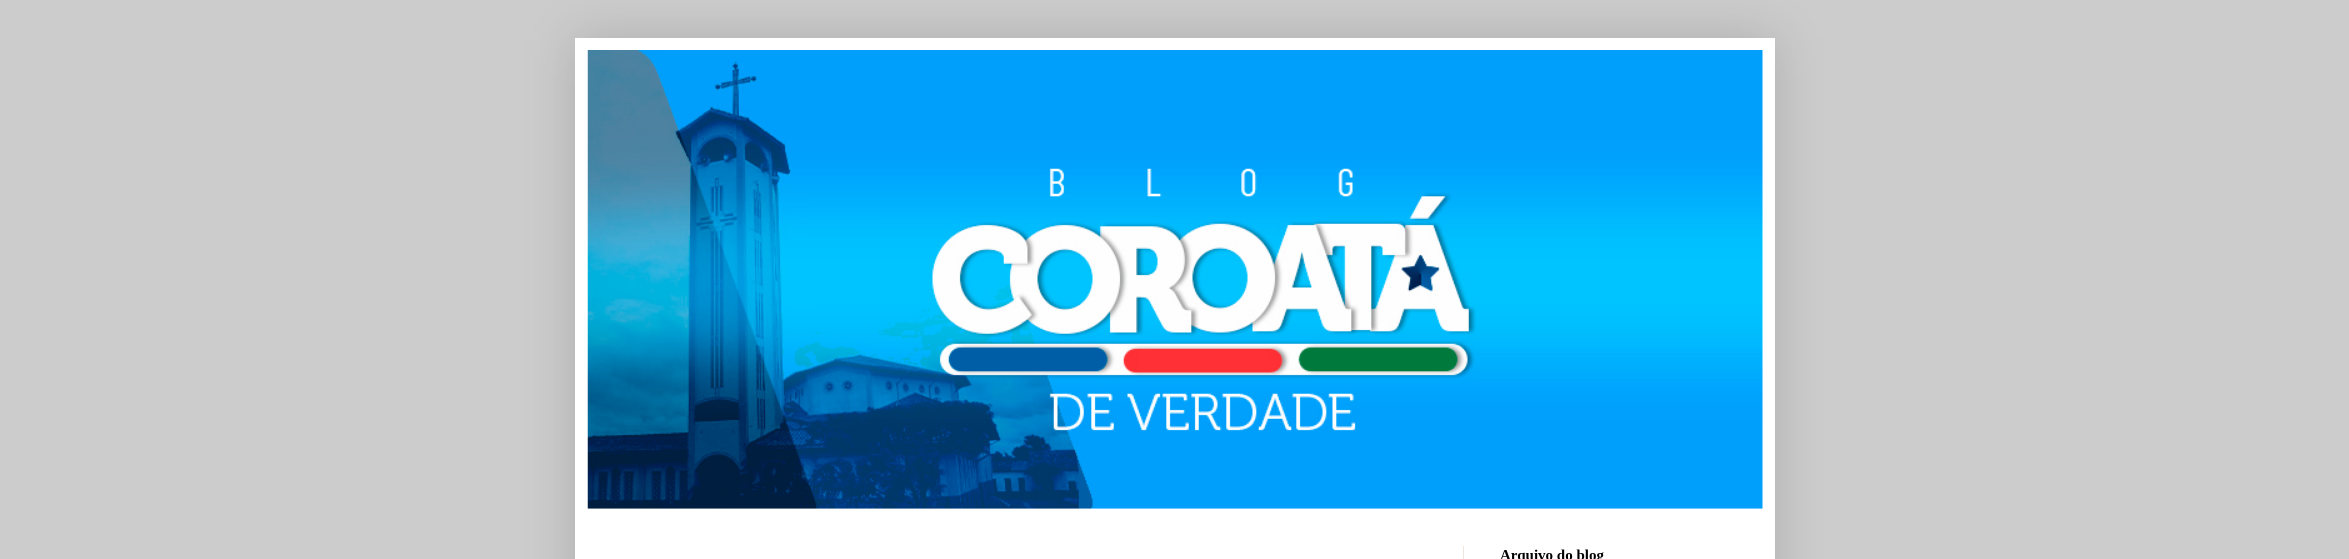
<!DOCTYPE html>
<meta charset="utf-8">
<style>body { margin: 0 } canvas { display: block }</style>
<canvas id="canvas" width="2349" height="559"></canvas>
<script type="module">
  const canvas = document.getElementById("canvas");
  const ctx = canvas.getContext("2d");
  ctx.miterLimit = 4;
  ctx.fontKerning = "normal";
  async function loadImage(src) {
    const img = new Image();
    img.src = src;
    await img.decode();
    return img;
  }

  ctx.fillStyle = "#cccccc";
  ctx.fillRect(0, 0, 2349, 559);
  ctx.fillStyle = "rgba(0, 0, 0, 0.15)";
  ctx.filter = "blur(25px)";
  ctx.beginPath();
  ctx.rect(575, 38, 1200, 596);
  ctx.fill();
  ctx.filter = "none";
  ctx.fillStyle = "#ffffff";
  ctx.fillRect(575, 38, 1200, 521);
  ctx.drawImage(await loadImage("img1.png"), 587, 50, 1176, 459);
  ctx.fillStyle = "#eee5dd";
  ctx.fillRect(1463, 546, 1, 13);
  ctx.font = "bold 15px Liberation Serif";
  ctx.fillStyle = "#000000";
  ctx.fillText("Arquivo do blog", 1500, 560);
</script>
